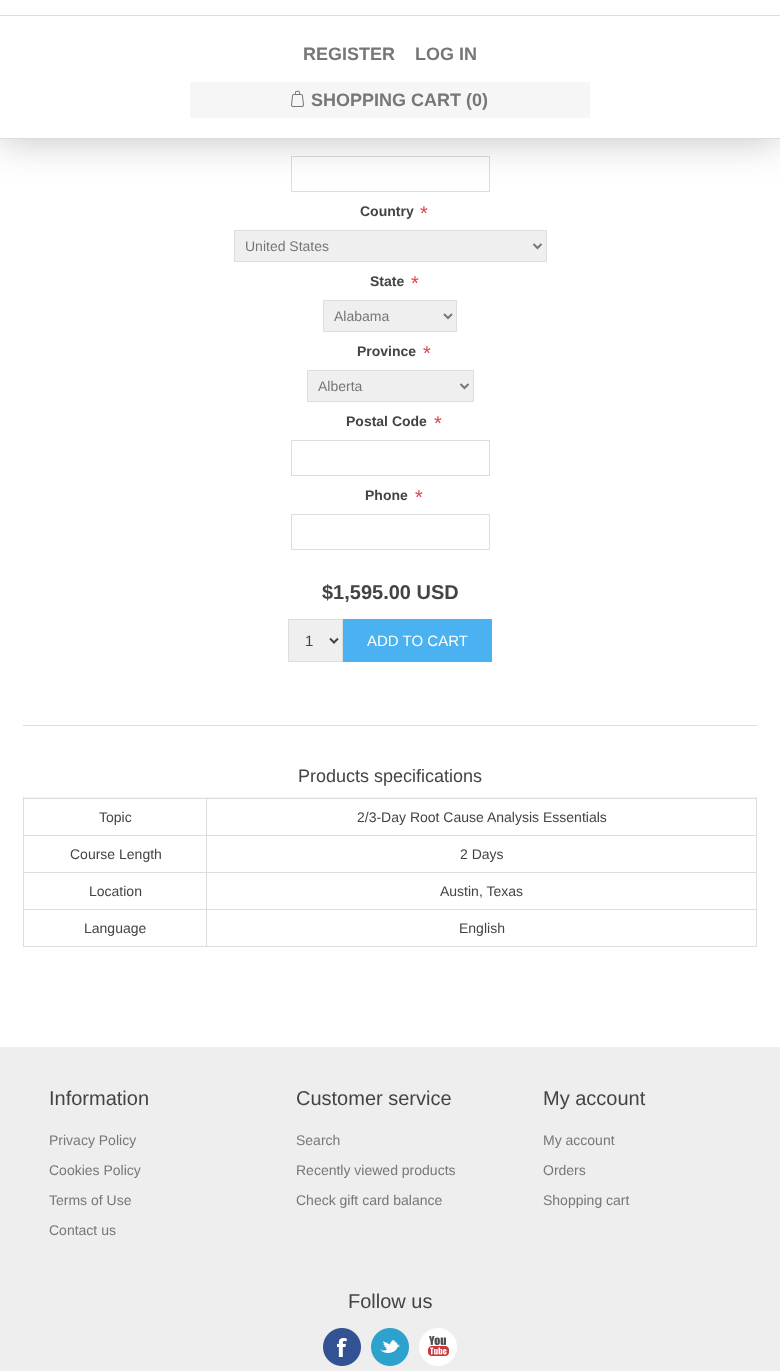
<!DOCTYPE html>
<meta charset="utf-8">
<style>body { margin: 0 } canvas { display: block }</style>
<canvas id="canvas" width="780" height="1371"></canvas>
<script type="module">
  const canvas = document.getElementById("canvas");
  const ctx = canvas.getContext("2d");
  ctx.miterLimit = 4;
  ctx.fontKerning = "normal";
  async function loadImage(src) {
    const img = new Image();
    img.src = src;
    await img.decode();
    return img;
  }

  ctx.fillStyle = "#ffffff";
  ctx.fillRect(0, 0, 780, 1371);
  ctx.strokeStyle = "#dddddd";
  ctx.strokeRect(291.5, 156.5, 198, 35);
  ctx.fillStyle = "rgba(34, 34, 34, 0.29)";
  ctx.filter = "blur(20px)";
  ctx.beginPath();
  ctx.rect(0, -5, 780, 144);
  ctx.fill();
  ctx.filter = "none";
  ctx.fillStyle = "#ffffff";
  ctx.fillRect(0, 0, 780, 138);
  ctx.fillStyle = "#dddddd";
  ctx.fillRect(0, 138, 780, 1);
  ctx.fillRect(0, 15, 780, 1);
  ctx.font = "bold 18px Liberation Sans";
  ctx.fillStyle = "#777777";
  ctx.fillText("REGISTER", 303, 60);
  ctx.fillText("LOG IN", 415, 60);
  ctx.fillStyle = "#f6f6f6";
  ctx.fillRect(190, 82, 400, 36);
  ctx.drawImage(await loadImage("img1.png"), 291, 90, 13, 17);
  ctx.fillStyle = "#777777";
  ctx.fillText("SHOPPING CART (0)", 311, 106);
  ctx.fillStyle = "#dddddd";
  ctx.fillRect(23, 725, 734, 1);
  ctx.font = "bold 14px Liberation Sans";
  ctx.fillStyle = "#444444";
  ctx.fillText("Country", 360, 216);
  ctx.font = "20px Liberation Sans";
  ctx.fillStyle = "#e4434b";
  ctx.fillText("*", 420, 220);
  ctx.fillStyle = "#efefef";
  ctx.beginPath();
  ctx.rect(234.5, 230.5, 312, 31);
  ctx.fill();
  ctx.stroke();
  ctx.beginPath();
  ctx.moveTo(533.5, 244);
  ctx.lineTo(537.5, 248);
  ctx.lineTo(541.5, 244);
  ctx.strokeStyle = "#777777";
  ctx.lineWidth = 2;
  ctx.stroke();
  ctx.font = "14px Liberation Sans";
  ctx.fillStyle = "#777777";
  ctx.fillText("United States", 245, 251);
  ctx.font = "bold 14px Liberation Sans";
  ctx.fillStyle = "#444444";
  ctx.fillText("State", 370, 286);
  ctx.font = "20px Liberation Sans";
  ctx.fillStyle = "#e4434b";
  ctx.fillText("*", 411, 290);
  ctx.fillStyle = "#efefef";
  ctx.beginPath();
  ctx.rect(323.5, 300.5, 133, 31);
  ctx.fill();
  ctx.strokeStyle = "#dddddd";
  ctx.lineWidth = 1;
  ctx.stroke();
  ctx.beginPath();
  ctx.moveTo(444, 314);
  ctx.lineTo(448, 318);
  ctx.lineTo(452, 314);
  ctx.strokeStyle = "#777777";
  ctx.lineWidth = 2;
  ctx.stroke();
  ctx.font = "14px Liberation Sans";
  ctx.fillStyle = "#777777";
  ctx.fillText("Alabama", 334, 321);
  ctx.font = "bold 14px Liberation Sans";
  ctx.fillStyle = "#444444";
  ctx.fillText("Province", 357, 356);
  ctx.font = "20px Liberation Sans";
  ctx.fillStyle = "#e4434b";
  ctx.fillText("*", 423, 360);
  ctx.fillStyle = "#efefef";
  ctx.beginPath();
  ctx.rect(307.5, 370.5, 166, 31);
  ctx.fill();
  ctx.strokeStyle = "#dddddd";
  ctx.lineWidth = 1;
  ctx.stroke();
  ctx.beginPath();
  ctx.moveTo(460.5, 384);
  ctx.lineTo(464.5, 388);
  ctx.lineTo(468.5, 384);
  ctx.strokeStyle = "#777777";
  ctx.lineWidth = 2;
  ctx.stroke();
  ctx.font = "14px Liberation Sans";
  ctx.fillStyle = "#777777";
  ctx.fillText("Alberta", 318, 391);
  ctx.font = "bold 14px Liberation Sans";
  ctx.fillStyle = "#444444";
  ctx.fillText("Postal Code", 346, 426);
  ctx.font = "20px Liberation Sans";
  ctx.fillStyle = "#e4434b";
  ctx.fillText("*", 434, 430);
  ctx.strokeStyle = "#dddddd";
  ctx.lineWidth = 1;
  ctx.strokeRect(291.5, 440.5, 198, 35);
  ctx.font = "bold 14px Liberation Sans";
  ctx.fillStyle = "#444444";
  ctx.fillText("Phone", 365, 500);
  ctx.font = "20px Liberation Sans";
  ctx.fillStyle = "#e4434b";
  ctx.fillText("*", 415, 504);
  ctx.strokeRect(291.5, 514.5, 198, 35);
  ctx.font = "bold 20px Liberation Sans";
  ctx.fillStyle = "#444444";
  ctx.fillText("$1,595.00 USD", 322, 599);
  ctx.fillStyle = "#efefef";
  ctx.beginPath();
  ctx.rect(288.5, 619.5, 54, 42);
  ctx.fill();
  ctx.stroke();
  ctx.beginPath();
  ctx.moveTo(330, 638.5);
  ctx.lineTo(334, 642.5);
  ctx.lineTo(338, 638.5);
  ctx.strokeStyle = "#444444";
  ctx.lineWidth = 2;
  ctx.stroke();
  ctx.font = "15px Liberation Sans";
  ctx.fillStyle = "#444444";
  ctx.fillText("1", 305, 646);
  ctx.fillStyle = "#4ab2f1";
  ctx.fillRect(343, 619, 149, 43);
  ctx.fillStyle = "#ffffff";
  ctx.fillText("ADD TO CART", 367, 646);
  ctx.font = "18px Liberation Sans";
  ctx.fillStyle = "#444444";
  ctx.fillText("Products specifications", 298, 782);
  ctx.fillStyle = "#f6f6f6";
  ctx.fillRect(24, 797, 732, 1);
  ctx.fillStyle = "#dddddd";
  ctx.fillRect(206, 798, 551, 1);
  ctx.fillRect(206, 835, 551, 1);
  ctx.fillRect(206, 872, 551, 1);
  ctx.fillRect(206, 909, 551, 1);
  ctx.fillRect(756, 909, 1, 38);
  ctx.fillRect(206, 946, 551, 1);
  ctx.fillRect(206, 909, 1, 38);
  ctx.fillRect(23, 909, 184, 1);
  ctx.fillRect(206, 872, 1, 38);
  ctx.fillRect(23, 872, 184, 1);
  ctx.fillRect(206, 835, 1, 38);
  ctx.fillRect(23, 835, 184, 1);
  ctx.fillRect(206, 798, 1, 38);
  ctx.fillRect(23, 798, 184, 1);
  ctx.fillRect(206, 797, 1, 2);
  ctx.fillRect(23, 946, 184, 1);
  ctx.fillRect(23, 909, 1, 38);
  ctx.fillRect(23, 872, 1, 38);
  ctx.fillRect(23, 835, 1, 38);
  ctx.fillRect(23, 797, 1, 39);
  ctx.font = "14px Liberation Sans";
  ctx.fillStyle = "#444444";
  ctx.fillText("Topic", 99, 822);
  ctx.fillStyle = "#dddddd";
  ctx.fillRect(756, 872, 1, 38);
  ctx.fillRect(756, 835, 1, 38);
  ctx.fillRect(756, 797, 1, 39);
  ctx.fillStyle = "#444444";
  ctx.fillText("2/3-Day Root Cause Analysis Essentials", 357, 822);
  ctx.fillText("Course Length", 70, 859);
  ctx.fillText("2 Days", 460, 859);
  ctx.fillText("Location", 89, 896);
  ctx.fillText("Austin, Texas", 440, 896);
  ctx.fillText("Language", 84, 933);
  ctx.fillText("English", 459, 933);
  ctx.fillStyle = "#eeeeee";
  ctx.fillRect(0, 1047, 780, 324);
  ctx.font = "20px Liberation Sans";
  ctx.fillStyle = "#444444";
  ctx.fillText("Information", 49, 1105);
  ctx.font = "14px Liberation Sans";
  ctx.fillStyle = "#777777";
  ctx.fillText("Privacy Policy", 49, 1145);
  ctx.fillText("Cookies Policy", 49, 1175);
  ctx.fillText("Terms of Use", 49, 1205);
  ctx.fillText("Contact us", 49, 1235);
  ctx.font = "20px Liberation Sans";
  ctx.fillStyle = "#444444";
  ctx.fillText("Customer service", 296, 1105);
  ctx.font = "14px Liberation Sans";
  ctx.fillStyle = "#777777";
  ctx.fillText("Search", 296, 1145);
  ctx.fillText("Recently viewed products", 296, 1175);
  ctx.fillText("Check gift card balance", 296, 1205);
  ctx.font = "20px Liberation Sans";
  ctx.fillStyle = "#444444";
  ctx.fillText("My account", 543, 1105);
  ctx.font = "14px Liberation Sans";
  ctx.fillStyle = "#777777";
  ctx.fillText("My account", 543, 1145);
  ctx.fillText("Orders", 543, 1175);
  ctx.fillText("Shopping cart", 543, 1205);
  ctx.font = "20px Liberation Sans";
  ctx.fillStyle = "#444444";
  ctx.fillText("Follow us", 348, 1308);
  ctx.drawImage(await loadImage("img2.png"), 323, 1328, 38, 38);
  ctx.drawImage(await loadImage("img3.png"), 371, 1328, 38, 38);
  ctx.drawImage(await loadImage("img4.png"), 419, 1328, 38, 38);
</script>
